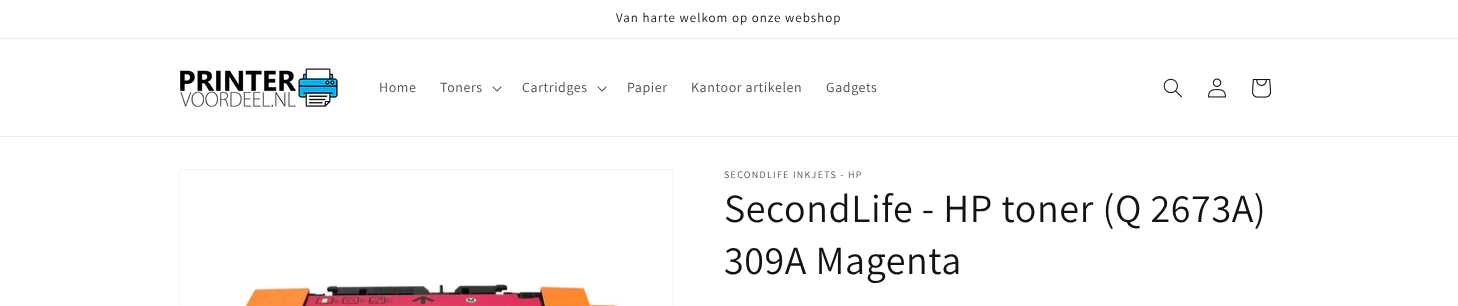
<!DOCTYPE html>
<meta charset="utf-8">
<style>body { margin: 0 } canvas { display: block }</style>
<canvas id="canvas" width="1458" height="306"></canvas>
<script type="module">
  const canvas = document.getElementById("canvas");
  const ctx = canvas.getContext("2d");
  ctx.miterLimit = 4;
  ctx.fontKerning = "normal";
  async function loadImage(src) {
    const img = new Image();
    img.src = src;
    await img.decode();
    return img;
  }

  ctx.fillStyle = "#ffffff";
  ctx.fillRect(0, 0, 1458, 306);
  ctx.fillStyle = "#ececec";
  ctx.fillRect(0, 38, 1458, 1);
  ctx.letterSpacing = "1px";
  ctx.font = "13px Assistant";
  ctx.fillStyle = "#121212";
  ctx.fillText("Van harte welkom op onze webshop", 616, 22);
  ctx.fillStyle = "#ececec";
  ctx.fillRect(0, 136, 1458, 1);
  ctx.drawImage(await loadImage("img1.png"), 179, 68, 160, 41);
  ctx.letterSpacing = "0.6px";
  ctx.font = "14px Assistant";
  ctx.fillStyle = "#4d4d4d";
  ctx.fillText("Home", 379, 92);
  ctx.fillText("Toners", 440, 92);
  ctx.drawImage(await loadImage("img2.png"), 492, 86, 10, 6);
  ctx.fillText("Cartridges", 522, 92);
  ctx.drawImage(await loadImage("img2.png"), 597, 86, 10, 6);
  ctx.fillText("Papier", 627, 92);
  ctx.fillText("Kantoor artikelen", 691, 92);
  ctx.fillText("Gadgets", 826, 92);
  ctx.drawImage(await loadImage("img3.png"), 1163, 78, 19, 20);
  ctx.drawImage(await loadImage("img4.png"), 1208, 78, 18, 20);
  ctx.drawImage(await loadImage("img5.png"), 1252, 79, 20, 19);
  ctx.strokeStyle = "#f3f3f3";
  ctx.strokeRect(179.5, 169.5, 494, 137);
  ctx.drawImage(await loadImage("img6.png"), 242, 282, 379, 24);
  ctx.letterSpacing = "1.3px";
  ctx.font = "10px Assistant";
  ctx.fillText("SECONDLIFE INKJETS - HP", 724, 178);
  ctx.letterSpacing = "0.6px";
  ctx.font = "40px Assistant";
  ctx.fillStyle = "#121212";
  ctx.fillText("SecondLife - HP toner (Q 2673A)", 724, 222);
  ctx.fillText("309A Magenta", 724, 274);
</script>
